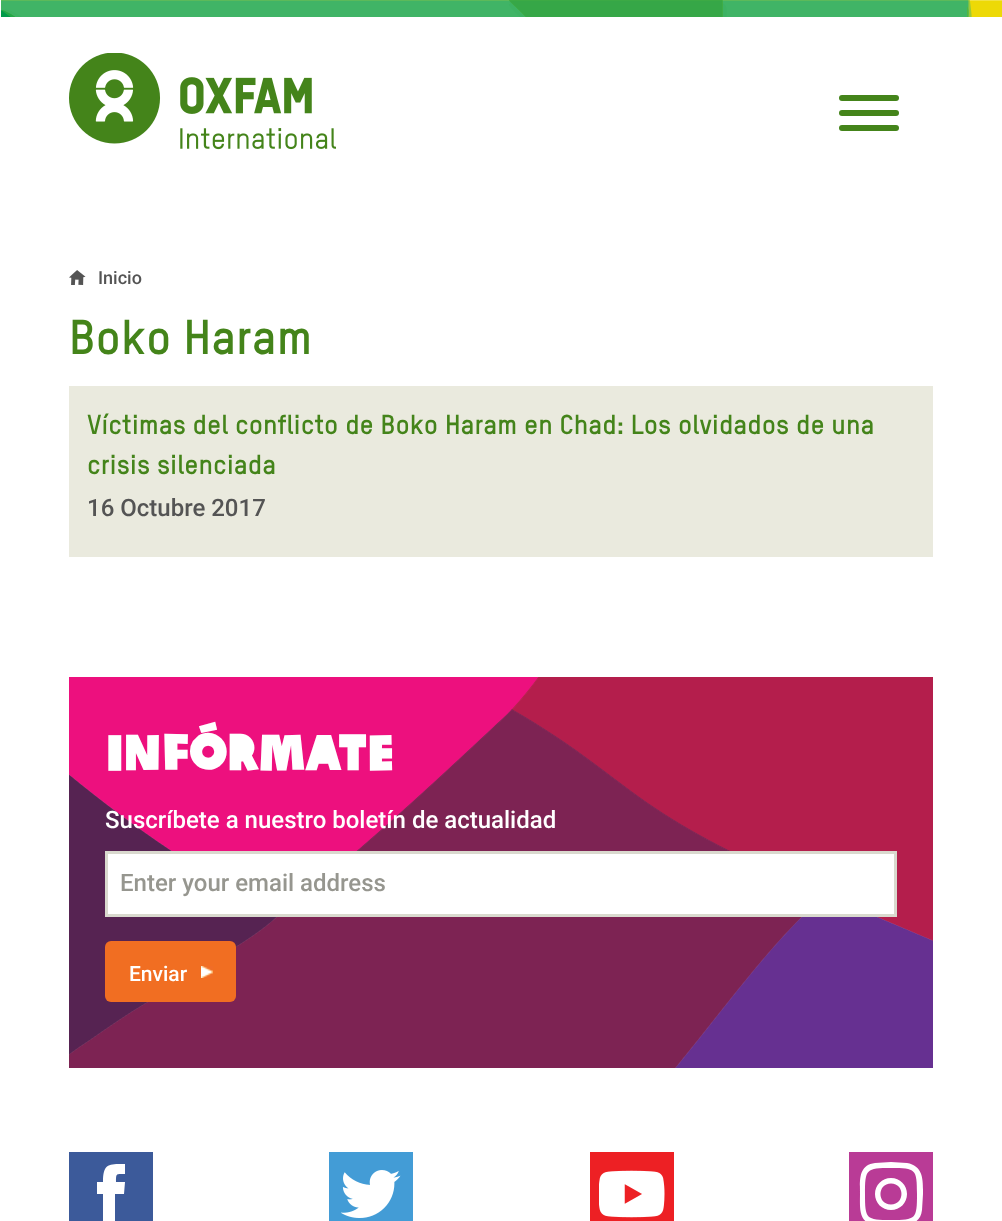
<!DOCTYPE html>
<meta charset="utf-8">
<style>body { margin: 0 } canvas { display: block }</style>
<canvas id="canvas" width="1002" height="1221"></canvas>
<script type="module">
  const canvas = document.getElementById("canvas");
  const ctx = canvas.getContext("2d");
  ctx.miterLimit = 4;
  ctx.fontKerning = "normal";
  async function loadImage(src) {
    const img = new Image();
    img.src = src;
    await img.decode();
    return img;
  }

  ctx.fillStyle = "#ffffff";
  ctx.fillRect(0, 0, 1002, 1221);
  ctx.drawImage(await loadImage("img1.png"), 1, 0, 1001, 17);
  ctx.drawImage(await loadImage("img2.png"), 69, 53, 267, 97);
  ctx.fillStyle = "#44841a";
  ctx.beginPath();
  ctx.roundRect(839, 125, 60, 6, 3);
  ctx.fill();
  ctx.beginPath();
  ctx.roundRect(839, 95, 60, 6, 3);
  ctx.fill();
  ctx.beginPath();
  ctx.roundRect(839, 110, 60, 6, 3);
  ctx.fill();
  ctx.drawImage(await loadImage("img3.png"), 69, 270, 17, 15);
  ctx.font = "500 18px Roboto";
  ctx.fillStyle = "#545454";
  ctx.fillText("Inicio", 98, 284);
  ctx.font = "bold 48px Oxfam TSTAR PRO";
  ctx.fillStyle = "#44841a";
  ctx.fillText("Boko Haram", 69, 354);
  ctx.fillStyle = "#eaeade";
  ctx.fillRect(69, 386, 864, 171);
  ctx.font = "bold 27px Oxfam TSTAR PRO";
  ctx.fillStyle = "#44841a";
  ctx.fillText("Víctimas del conflicto de Boko Haram en Chad: Los olvidados de una", 87, 434);
  ctx.fillText("crisis silenciada", 87, 474);
  ctx.font = "500 24px Roboto";
  ctx.fillStyle = "#545454";
  ctx.fillText("16 Octubre 2017", 87, 516);
  ctx.drawImage(await loadImage("img4.png"), 69, 677, 864, 391);
  ctx.font = "bold 48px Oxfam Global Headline";
  ctx.fillStyle = "#ffffff";
  ctx.fillText("Infórmate", 105, 770);
  ctx.font = "500 24px Roboto";
  ctx.fillText("Suscríbete a nuestro boletín de actualidad", 105, 828);
  ctx.beginPath();
  ctx.rect(106.5, 852.5, 789, 63);
  ctx.fill();
  ctx.strokeStyle = "#d9d9ce";
  ctx.lineWidth = 3;
  ctx.stroke();
  ctx.fillStyle = "#96968f";
  ctx.fillText("Enter your email address", 120, 891);
  ctx.fillStyle = "#f16e22";
  ctx.beginPath();
  ctx.roundRect(105, 941, 131, 61, 6);
  ctx.fill();
  ctx.drawImage(await loadImage("img5.png"), 201, 966, 12, 12);
  ctx.font = "500 21px Roboto";
  ctx.fillStyle = "#ffffff";
  ctx.fillText("Enviar", 129, 981);
  ctx.fillStyle = "#3c5a9a";
  ctx.fillRect(69, 1152, 84, 69);
  ctx.fillStyle = "#ffffff";
  ctx.beginPath();
  ctx.moveTo(103, 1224);
  ctx.lineTo(115, 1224);
  ctx.lineTo(115, 1194);
  ctx.lineTo(124, 1194);
  ctx.lineTo(125, 1182);
  ctx.lineTo(116, 1182);
  ctx.bezierCurveTo(116, 1173, 116, 1174, 125, 1174);
  ctx.lineTo(125, 1164);
  ctx.bezierCurveTo(109, 1164, 103, 1163, 103, 1182);
  ctx.lineTo(97, 1182);
  ctx.lineTo(97, 1194);
  ctx.lineTo(103, 1194);
  ctx.closePath();
  ctx.fill("evenodd");
  ctx.fillStyle = "#439cd6";
  ctx.fillRect(329, 1152, 84, 69);
  ctx.drawImage(await loadImage("img6.png"), 341, 1170, 60, 48);
  ctx.fillStyle = "#ed2024";
  ctx.fillRect(590, 1152, 84, 69);
  ctx.drawImage(await loadImage("img7.png"), 599, 1170, 66, 48);
  ctx.fillStyle = "#b93b96";
  ctx.fillRect(849, 1152, 84, 69);
  ctx.fillStyle = "#ffffff";
  ctx.beginPath();
  ctx.moveTo(891, 1162);
  ctx.lineTo(907, 1163);
  ctx.bezierCurveTo(924, 1166, 923, 1181, 923, 1194);
  ctx.lineTo(922, 1210);
  ctx.bezierCurveTo(920, 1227, 904, 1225, 891, 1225);
  ctx.lineTo(875, 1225);
  ctx.bezierCurveTo(858, 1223, 860, 1207, 860, 1194);
  ctx.bezierCurveTo(860, 1181, 858, 1165, 875, 1163);
  ctx.closePath();
  ctx.moveTo(891, 1168);
  ctx.bezierCurveTo(866, 1168, 865, 1169, 865, 1194);
  ctx.bezierCurveTo(865, 1219, 866, 1220, 891, 1220);
  ctx.bezierCurveTo(916, 1220, 917, 1219, 917, 1194);
  ctx.bezierCurveTo(917, 1169, 916, 1168, 891, 1168);
  ctx.closePath();
  ctx.fill("evenodd");
  ctx.beginPath();
  ctx.moveTo(891, 1178);
  ctx.bezierCurveTo(900, 1178, 907, 1185, 907, 1194);
  ctx.bezierCurveTo(907, 1203, 900, 1210, 891, 1210);
  ctx.bezierCurveTo(882, 1210, 875, 1203, 875, 1194);
  ctx.bezierCurveTo(875, 1185, 882, 1178, 891, 1178);
  ctx.closePath();
  ctx.moveTo(891, 1204.5);
  ctx.bezierCurveTo(905, 1204.5, 905, 1183.5, 891, 1183.5);
  ctx.bezierCurveTo(877, 1183.5, 877, 1204.5, 891, 1204.5);
  ctx.closePath();
  ctx.fill("evenodd");
</script>
